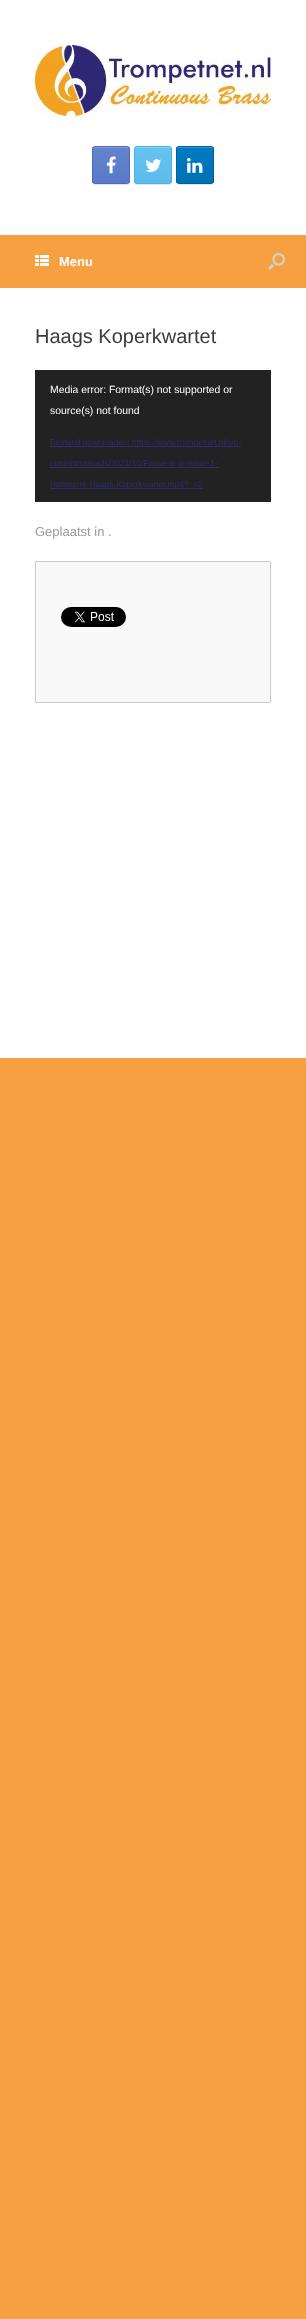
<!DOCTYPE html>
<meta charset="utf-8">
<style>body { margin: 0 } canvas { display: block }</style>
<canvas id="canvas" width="306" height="2319"></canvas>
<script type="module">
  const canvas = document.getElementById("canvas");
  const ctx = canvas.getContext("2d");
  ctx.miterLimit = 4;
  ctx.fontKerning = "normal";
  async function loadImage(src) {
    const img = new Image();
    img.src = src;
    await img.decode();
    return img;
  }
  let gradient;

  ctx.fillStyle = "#f7a041";
  ctx.fillRect(0, 0, 306, 2319);
  ctx.fillStyle = "#ffffff";
  ctx.fillRect(0, 0, 306, 235);
  ctx.drawImage(await loadImage("img1.png"), 35, 45, 236, 71);
  ctx.fillStyle = "rgba(0, 0, 0, 0.1)";
  ctx.filter = "blur(0.5px)";
  ctx.beginPath();
  ctx.roundRect(92, 147, 38, 38, 3);
  ctx.fill();
  ctx.filter = "none";
  ctx.save();
  ctx.beginPath();
  ctx.roundRect(92, 146, 38, 38, 3);
  ctx.clip();
  gradient = ctx.createLinearGradient(93, 183, 93, 147);
  gradient.addColorStop(0, "#597ac7");
  gradient.addColorStop(1, "#6483cb");
  ctx.fillStyle = gradient;
  ctx.fillRect(92, 147, 38, 36);
  ctx.restore();
  ctx.fillStyle = "#839cd5";
  ctx.beginPath();
  ctx.moveTo(95, 148);
  ctx.lineTo(127, 148);
  ctx.bezierCurveTo(128, 148, 129, 149, 129, 150);
  ctx.bezierCurveTo(129, 145.5, 125.5, 147, 121.5, 147);
  ctx.lineTo(100.5, 147);
  ctx.bezierCurveTo(96.5, 147, 93, 145.5, 93, 150);
  ctx.bezierCurveTo(93, 149, 94, 148, 95, 148);
  ctx.closePath();
  ctx.fill();
  ctx.beginPath();
  ctx.roundRect(92.5, 146.5, 37, 37, 2.5);
  ctx.strokeStyle = "#466bc1";
  ctx.stroke();
  ctx.drawImage(await loadImage("img2.png"), 106, 156, 10, 18);
  ctx.fillStyle = "rgba(0, 0, 0, 0.1)";
  ctx.filter = "blur(0.5px)";
  ctx.beginPath();
  ctx.roundRect(134, 147, 38, 38, 3);
  ctx.fill();
  ctx.filter = "none";
  ctx.save();
  ctx.beginPath();
  ctx.roundRect(134, 146, 38, 38, 3);
  ctx.clip();
  gradient = ctx.createLinearGradient(135, 183, 135, 147);
  gradient.addColorStop(0, "#5bbcec");
  gradient.addColorStop(1, "#69c2ee");
  ctx.fillStyle = gradient;
  ctx.fillRect(134, 147, 38, 36);
  ctx.restore();
  ctx.fillStyle = "#8ed1f2";
  ctx.beginPath();
  ctx.moveTo(137, 148);
  ctx.lineTo(169, 148);
  ctx.bezierCurveTo(170, 148, 171, 149, 171, 150);
  ctx.bezierCurveTo(171, 145.5, 167.5, 147, 163.5, 147);
  ctx.lineTo(142.5, 147);
  ctx.bezierCurveTo(138.5, 147, 135, 145.5, 135, 150);
  ctx.bezierCurveTo(135, 149, 136, 148, 137, 148);
  ctx.closePath();
  ctx.fill();
  ctx.beginPath();
  ctx.roundRect(134.5, 146.5, 37, 37, 2.5);
  ctx.strokeStyle = "#44b3e9";
  ctx.stroke();
  ctx.drawImage(await loadImage("img3.png"), 145, 159, 17, 13);
  ctx.fillStyle = "rgba(0, 0, 0, 0.1)";
  ctx.filter = "blur(0.5px)";
  ctx.beginPath();
  ctx.roundRect(176, 147, 38, 38, 3);
  ctx.fill();
  ctx.filter = "none";
  ctx.save();
  ctx.beginPath();
  ctx.roundRect(176, 146, 38, 38, 3);
  ctx.clip();
  gradient = ctx.createLinearGradient(177, 183, 177, 147);
  gradient.addColorStop(0, "#0070b4");
  gradient.addColorStop(1, "#007ac3");
  ctx.fillStyle = gradient;
  ctx.fillRect(176, 147, 38, 36);
  ctx.restore();
  ctx.fillStyle = "#3395cf";
  ctx.beginPath();
  ctx.moveTo(179, 148);
  ctx.lineTo(211, 148);
  ctx.bezierCurveTo(212, 148, 213, 149, 213, 150);
  ctx.bezierCurveTo(213, 145.5, 209.5, 147, 205.5, 147);
  ctx.lineTo(184.5, 147);
  ctx.bezierCurveTo(180.5, 147, 177, 145.5, 177, 150);
  ctx.bezierCurveTo(177, 149, 178, 148, 179, 148);
  ctx.closePath();
  ctx.fill();
  ctx.beginPath();
  ctx.roundRect(176.5, 146.5, 37, 37, 2.5);
  ctx.strokeStyle = "#00609b";
  ctx.stroke();
  ctx.drawImage(await loadImage("img4.png"), 187, 158, 16, 15);
  ctx.drawImage(await loadImage("img5.png"), 35, 255, 14, 11);
  ctx.font = "bold 13px Liberation Sans";
  ctx.fillStyle = "#ffffff";
  ctx.fillText("Menu", 59, 266);
  ctx.drawImage(await loadImage("img6.png"), 268, 253, 17, 17);
  ctx.fillRect(0, 288, 306, 770);
  ctx.font = "20px Liberation Sans";
  ctx.fillStyle = "#3b3b3b";
  ctx.fillText("Haags Koperkwartet", 35, 343);
  ctx.fillStyle = "#222222";
  ctx.fillRect(35, 370, 236, 132);
  ctx.font = "10.4px Liberation Sans";
  ctx.fillStyle = "#ffffff";
  ctx.fillText("Media error: Format(s) not supported or", 50, 393);
  ctx.fillText("source(s) not found", 50, 414);
  ctx.fillStyle = "#302a70";
  ctx.fillRect(50, 446, 191, 1);
  ctx.font = "8.3px Liberation Sans";
  ctx.fillText("Bestand downloaden: https://www.trompetnet.nl/wp-", 50, 445);
  ctx.fillRect(50, 467, 169, 1);
  ctx.fillText("content/uploads/2021/10/Fugue-in-g-minor-J.-", 50, 466);
  ctx.fillRect(50, 488, 153, 1);
  ctx.fillText("Hotteterre-Haags-Koperkwartet.mp4?_=2", 50, 487);
  ctx.font = "13px Liberation Sans";
  ctx.fillStyle = "#999999";
  ctx.fillText("Geplaatst in .", 35, 536);
  ctx.fillStyle = "#f9f9f9";
  ctx.beginPath();
  ctx.rect(35.5, 561.5, 235, 141);
  ctx.fill();
  ctx.strokeStyle = "#cccccc";
  ctx.stroke();
  ctx.drawImage(await loadImage("img7.png"), 61, 607, 65, 20);
</script>
